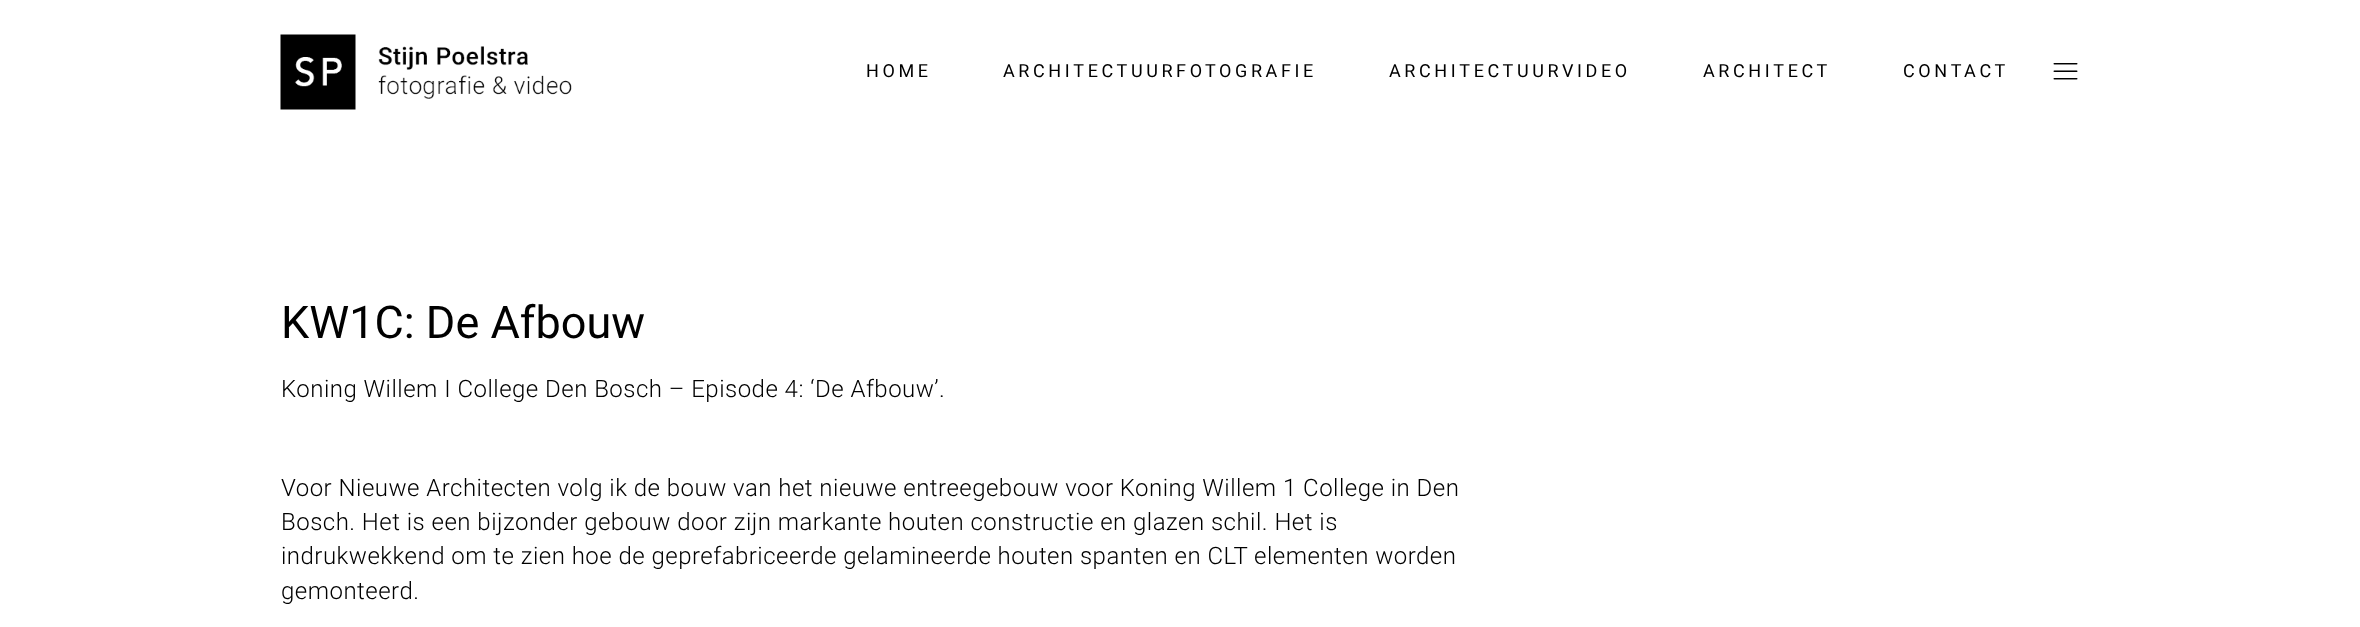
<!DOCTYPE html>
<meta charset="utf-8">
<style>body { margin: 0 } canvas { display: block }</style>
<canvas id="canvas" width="2360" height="627"></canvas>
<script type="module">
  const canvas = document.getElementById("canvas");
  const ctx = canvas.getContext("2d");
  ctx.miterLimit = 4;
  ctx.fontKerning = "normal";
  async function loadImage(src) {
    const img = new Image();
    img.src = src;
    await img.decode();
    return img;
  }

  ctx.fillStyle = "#ffffff";
  ctx.fillRect(0, 0, 2360, 627);
  ctx.drawImage(await loadImage("img1.png"), 280, 34, 292, 76);
  ctx.letterSpacing = "3.6px";
  ctx.font = "18px Heebo";
  ctx.fillStyle = "#000000";
  ctx.fillText("HOME", 866, 77);
  ctx.fillText("ARCHITECTUURFOTOGRAFIE", 1003, 77);
  ctx.fillText("ARCHITECTUURVIDEO", 1389, 77);
  ctx.fillText("ARCHITECT", 1703, 77);
  ctx.fillText("CONTACT", 1903, 77);
  ctx.drawImage(await loadImage("img2.png"), 2053, 63, 25, 17);
  ctx.letterSpacing = "0px";
  ctx.font = "45px Heebo";
  ctx.fillText("KW1C: De Afbouw", 281, 338);
  ctx.letterSpacing = "0.48px";
  ctx.font = "300 24px Roboto";
  ctx.fillText("Koning Willem I College Den Bosch – Episode 4: ‘De Afbouw’.", 281, 397);
  ctx.fillText("Voor Nieuwe Architecten volg ik de bouw van het nieuwe entreegebouw voor Koning Willem 1 College in Den", 281, 496);
  ctx.fillText("Bosch. Het is een bijzonder gebouw door zijn markante houten constructie en glazen schil. Het is", 281, 530);
  ctx.fillText("indrukwekkend om te zien hoe de geprefabriceerde gelamineerde houten spanten en CLT elementen worden", 281, 564);
  ctx.fillText("gemonteerd.", 281, 599);
</script>
